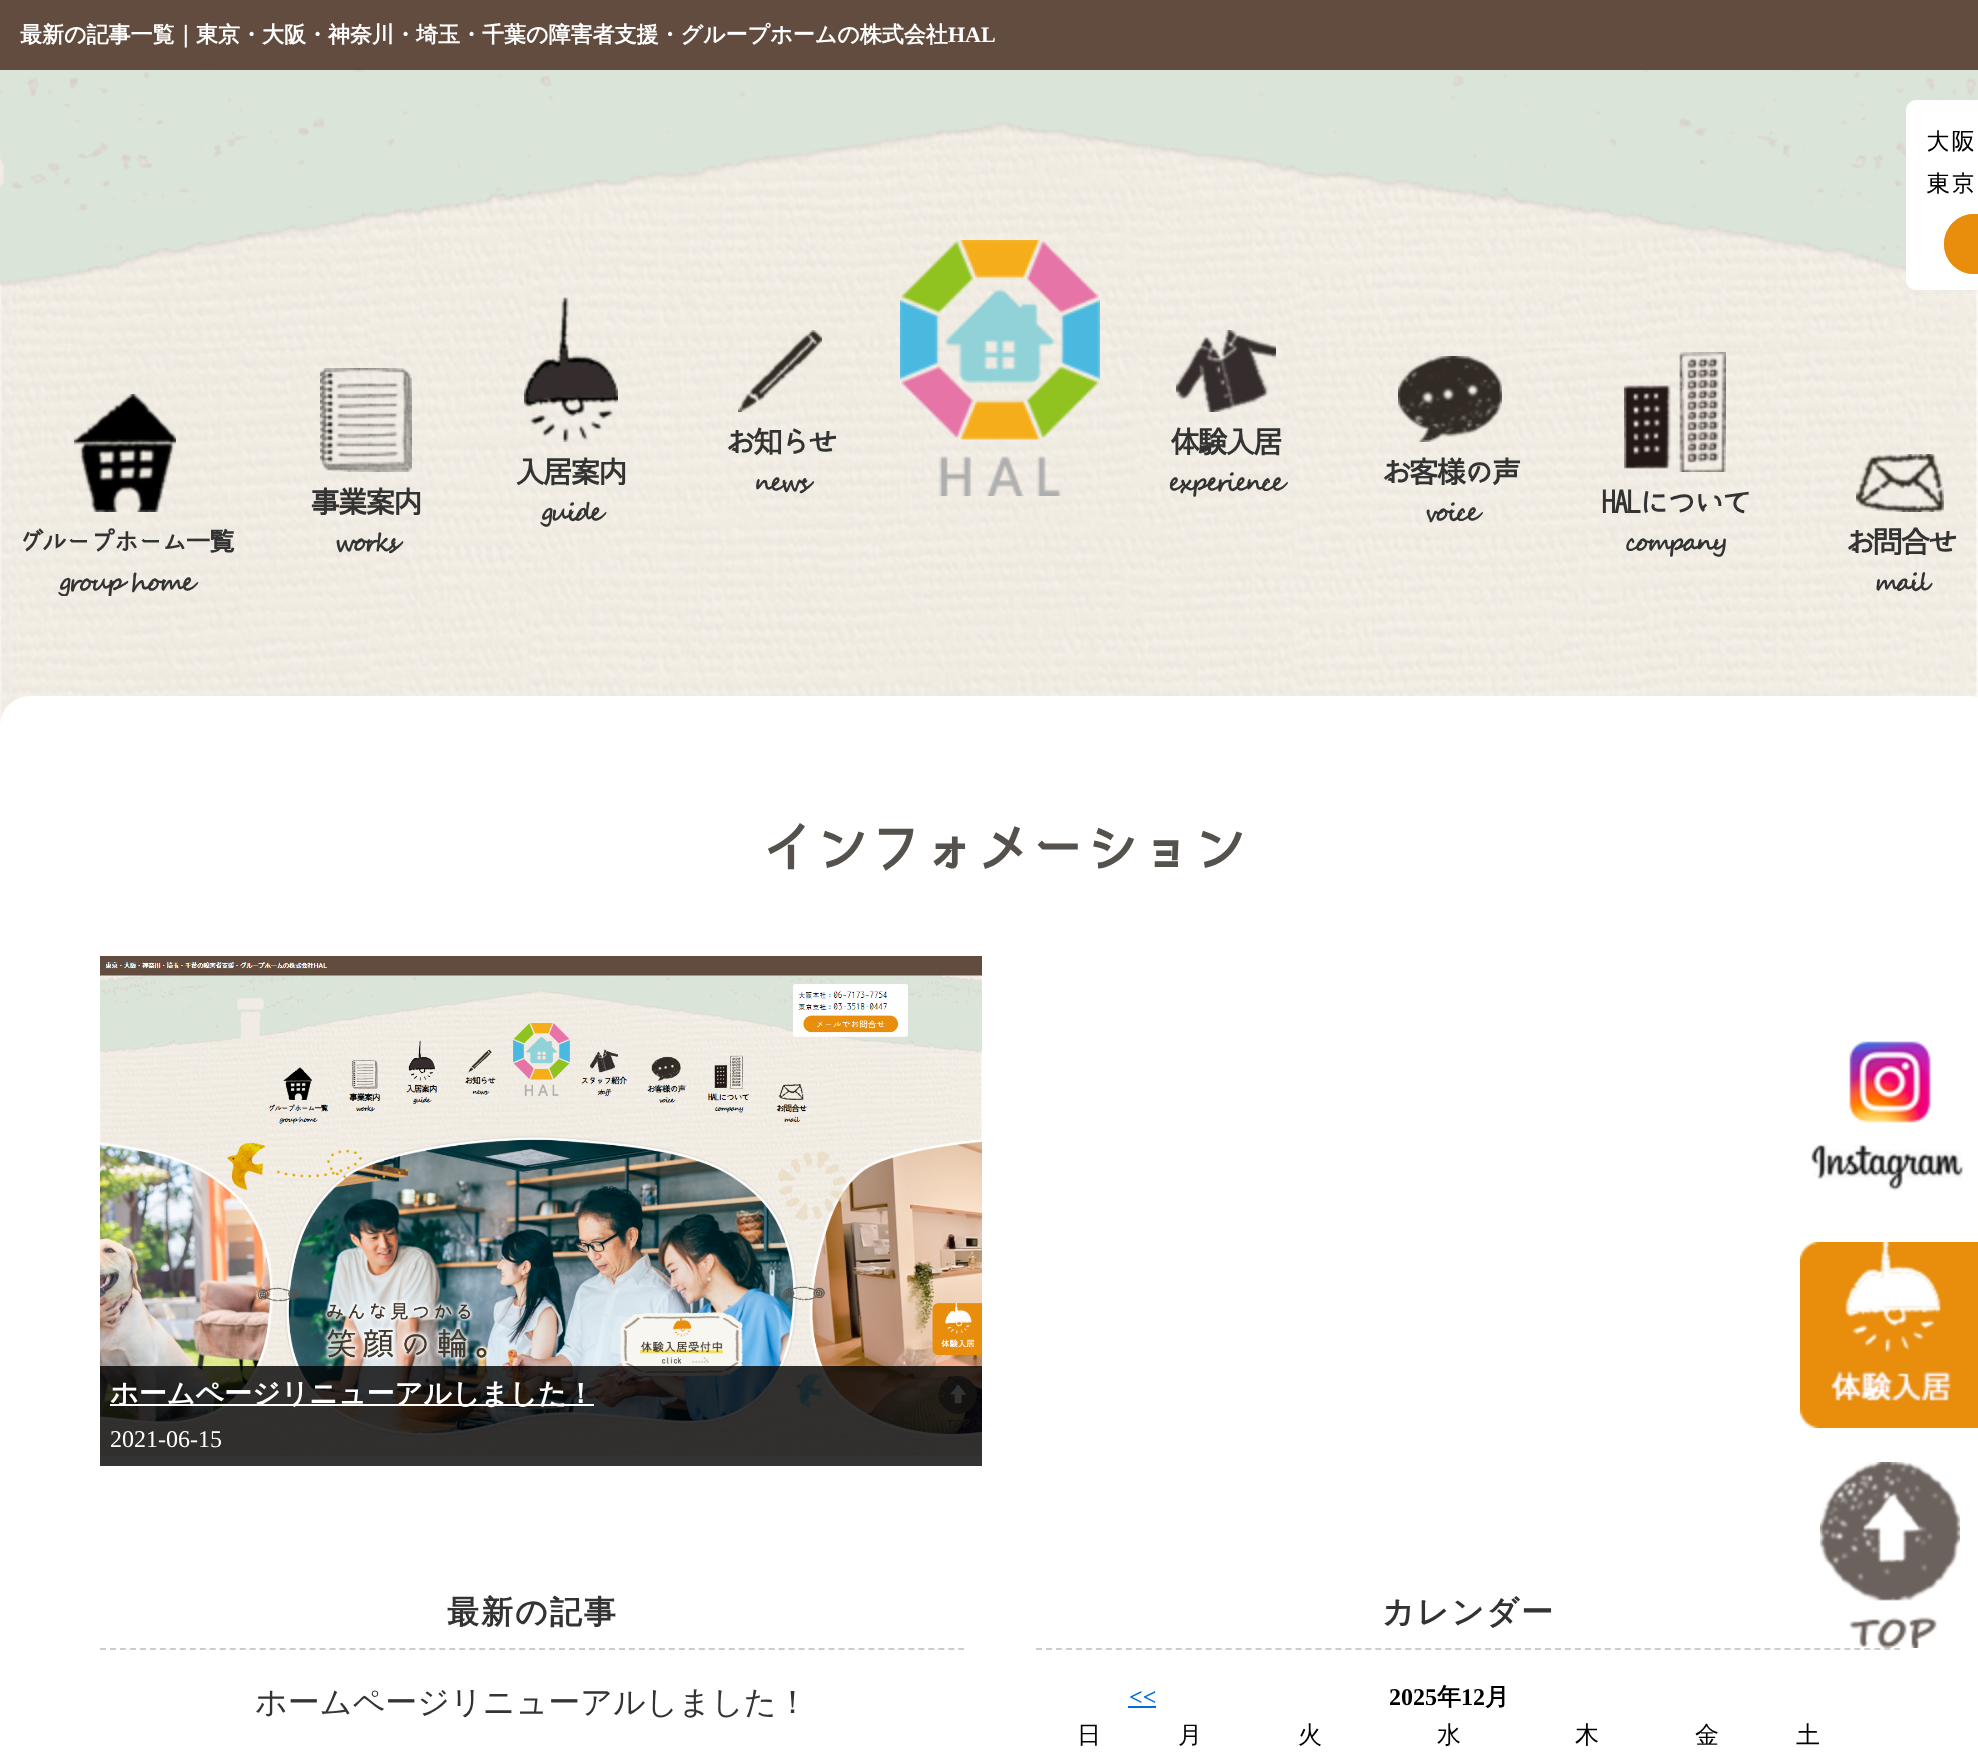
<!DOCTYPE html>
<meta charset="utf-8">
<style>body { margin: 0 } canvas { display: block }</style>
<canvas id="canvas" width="1978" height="1754"></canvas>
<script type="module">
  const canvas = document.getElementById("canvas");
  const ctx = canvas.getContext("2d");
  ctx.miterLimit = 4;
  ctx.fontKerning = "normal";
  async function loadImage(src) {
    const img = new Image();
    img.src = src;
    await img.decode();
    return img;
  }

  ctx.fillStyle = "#ffffff";
  ctx.fillRect(0, 0, 1978, 1754);
  ctx.drawImage(await loadImage("img1.png"), 0, 70, 1978, 656);
  ctx.fillStyle = "#614c3f";
  ctx.fillRect(0, 0, 1978, 70);
  ctx.font = "bold 22px WenQuanYi Zen Hei";
  ctx.fillStyle = "#ffffff";
  ctx.fillText("最新の記事一覧｜東京・大阪・神奈川・埼玉・千葉の障害者支援・グループホームの株式会社", 20, 42);
  ctx.font = "bold 22px Liberation Serif";
  ctx.fillText("HAL", 948, 42);
  ctx.drawImage(await loadImage("img2.png"), 0, 70, 1978, 216);
  ctx.beginPath();
  ctx.roundRect(1906, 100, 72, 190, [10, 0, 0, 10]);
  ctx.fill();
  ctx.letterSpacing = "1px";
  ctx.font = "24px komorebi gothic";
  ctx.fillStyle = "#000000";
  ctx.fillText("大阪", 1926, 150);
  ctx.fillText("東京", 1926, 192);
  ctx.fillStyle = "#e88d0c";
  ctx.beginPath();
  ctx.roundRect(1944, 214, 34, 60, [30, 0, 0, 30]);
  ctx.fill();
  ctx.beginPath();
  ctx.roundRect(1945, 215, 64, 58, 29);
  ctx.strokeStyle = "#e88d0c";
  ctx.lineWidth = 2;
  ctx.stroke();
  ctx.drawImage(await loadImage("img3.png"), 74, 394, 102, 118);
  ctx.letterSpacing = "-2px";
  ctx.font = "bold 26px komorebi gothic";
  ctx.fillStyle = "#333333";
  ctx.fillText("グループホーム一覧", 17, 551);
  ctx.save();
  ctx.beginPath();
  ctx.rect(0, 0, 1978, 596);
  ctx.clip();
  ctx.wordSpacing = "1px";
  ctx.font = "bold 24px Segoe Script";
  ctx.fillText("group home", 59, 591);
  ctx.restore();
  ctx.drawImage(await loadImage("img4.png"), 320, 368, 92, 104);
  ctx.letterSpacing = "-2.4px";
  ctx.font = "bold 30px komorebi gothic";
  ctx.fillText("事業案内", 310, 513);
  ctx.font = "bold 24px Segoe Script";
  ctx.fillText("works", 334, 551);
  ctx.drawImage(await loadImage("img5.png"), 524, 297, 94, 145);
  ctx.font = "bold 30px komorebi gothic";
  ctx.fillText("入居案内", 515, 483);
  ctx.font = "bold 24px Segoe Script";
  ctx.fillText("guide", 541, 521);
  ctx.drawImage(await loadImage("img6.png"), 738, 330, 84, 82);
  ctx.font = "bold 30px komorebi gothic";
  ctx.fillText("お知らせ", 725, 453);
  ctx.font = "bold 24px Segoe Script";
  ctx.fillText("news", 754, 491);
  ctx.drawImage(await loadImage("img7.png"), 900, 240, 200, 256);
  ctx.drawImage(await loadImage("img8.png"), 1176, 330, 100, 82);
  ctx.font = "bold 30px komorebi gothic";
  ctx.fillText("体験入居", 1170, 453);
  ctx.font = "bold 24px Segoe Script";
  ctx.fillText("experience", 1168, 491);
  ctx.drawImage(await loadImage("img9.png"), 1398, 356, 104, 86);
  ctx.font = "bold 30px komorebi gothic";
  ctx.fillText("お客様の声", 1381, 483);
  ctx.font = "bold 24px Segoe Script";
  ctx.fillText("voice", 1424, 521);
  ctx.drawImage(await loadImage("img10.png"), 1624, 352, 102, 120);
  ctx.font = "bold 30px komorebi gothic";
  ctx.fillText("HALについて", 1601, 513);
  ctx.font = "bold 24px Segoe Script";
  ctx.fillText("company", 1625, 551);
  ctx.drawImage(await loadImage("img11.png"), 1856, 454, 88, 58);
  ctx.font = "bold 30px komorebi gothic";
  ctx.fillText("お問合せ", 1845, 553);
  ctx.font = "bold 24px Segoe Script";
  ctx.fillText("mail", 1874, 591);
  ctx.fillStyle = "#ffffff";
  ctx.beginPath();
  ctx.roundRect(0, 696, 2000, 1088, 30);
  ctx.fill();
  ctx.letterSpacing = "-6px";
  ctx.font = "bold 60px komorebi gothic";
  ctx.fillStyle = "#55514c";
  ctx.fillText("インフォメーション", 757, 869);
  ctx.drawImage(await loadImage("img12.png"), 100, 956, 882, 500);
  ctx.fillStyle = "rgba(0, 0, 0, 0.8)";
  ctx.fillRect(100, 1366, 882, 100);
  ctx.fillStyle = "#ffffff";
  ctx.fillRect(110, 1404, 484, 2);
  ctx.letterSpacing = "0px";
  ctx.font = "bold 28px WenQuanYi Zen Hei";
  ctx.fillText("ホームページリニューアルしました！", 110, 1403);
  ctx.font = "24px Liberation Serif";
  ctx.fillText("2021-06-15", 110, 1447);
  ctx.beginPath();
  ctx.moveTo(100, 1649);
  ctx.lineTo(964, 1649);
  ctx.strokeStyle = "#cccccc";
  ctx.setLineDash([6, 3.98]);
  ctx.stroke();
  ctx.letterSpacing = "2px";
  ctx.font = "bold 32px WenQuanYi Zen Hei";
  ctx.fillStyle = "#333333";
  ctx.fillText("最新の記事", 447, 1623);
  ctx.letterSpacing = "0px";
  ctx.font = "500 32px WenQuanYi Zen Hei";
  ctx.fillText("ホームページリニューアルしました！", 255, 1713);
  ctx.beginPath();
  ctx.moveTo(1036, 1649);
  ctx.lineTo(1900, 1649);
  ctx.stroke();
  ctx.letterSpacing = "2px";
  ctx.font = "bold 32px WenQuanYi Zen Hei";
  ctx.fillText("カレンダー", 1382, 1623);
  ctx.letterSpacing = "0px";
  ctx.font = "bold 24px Liberation Serif";
  ctx.fillStyle = "#006dd9";
  ctx.fillText("<<", 1129, 1705);
  ctx.fillRect(1128, 1706, 28, 2);
  ctx.fillStyle = "#000000";
  ctx.fillText("2025", 1389, 1705);
  ctx.font = "bold 24px WenQuanYi Zen Hei";
  ctx.fillText("年", 1437, 1705);
  ctx.font = "bold 24px Liberation Serif";
  ctx.fillText("12", 1461, 1705);
  ctx.font = "bold 24px WenQuanYi Zen Hei";
  ctx.fillText("月", 1485, 1705);
  ctx.font = "500 24px WenQuanYi Zen Hei";
  ctx.fillText("日", 1077, 1743);
  ctx.fillText("月", 1178, 1743);
  ctx.fillText("火", 1298, 1743);
  ctx.fillText("水", 1437, 1743);
  ctx.fillText("木", 1575, 1743);
  ctx.fillText("金", 1695, 1743);
  ctx.fillText("土", 1796, 1743);
  ctx.drawImage(await loadImage("img13.png"), 1811, 1041, 153, 150);
  ctx.drawImage(await loadImage("img14.png"), 1800, 1242, 178, 186);
  ctx.drawImage(await loadImage("img15.png"), 1820, 1462, 140, 186);
</script>
